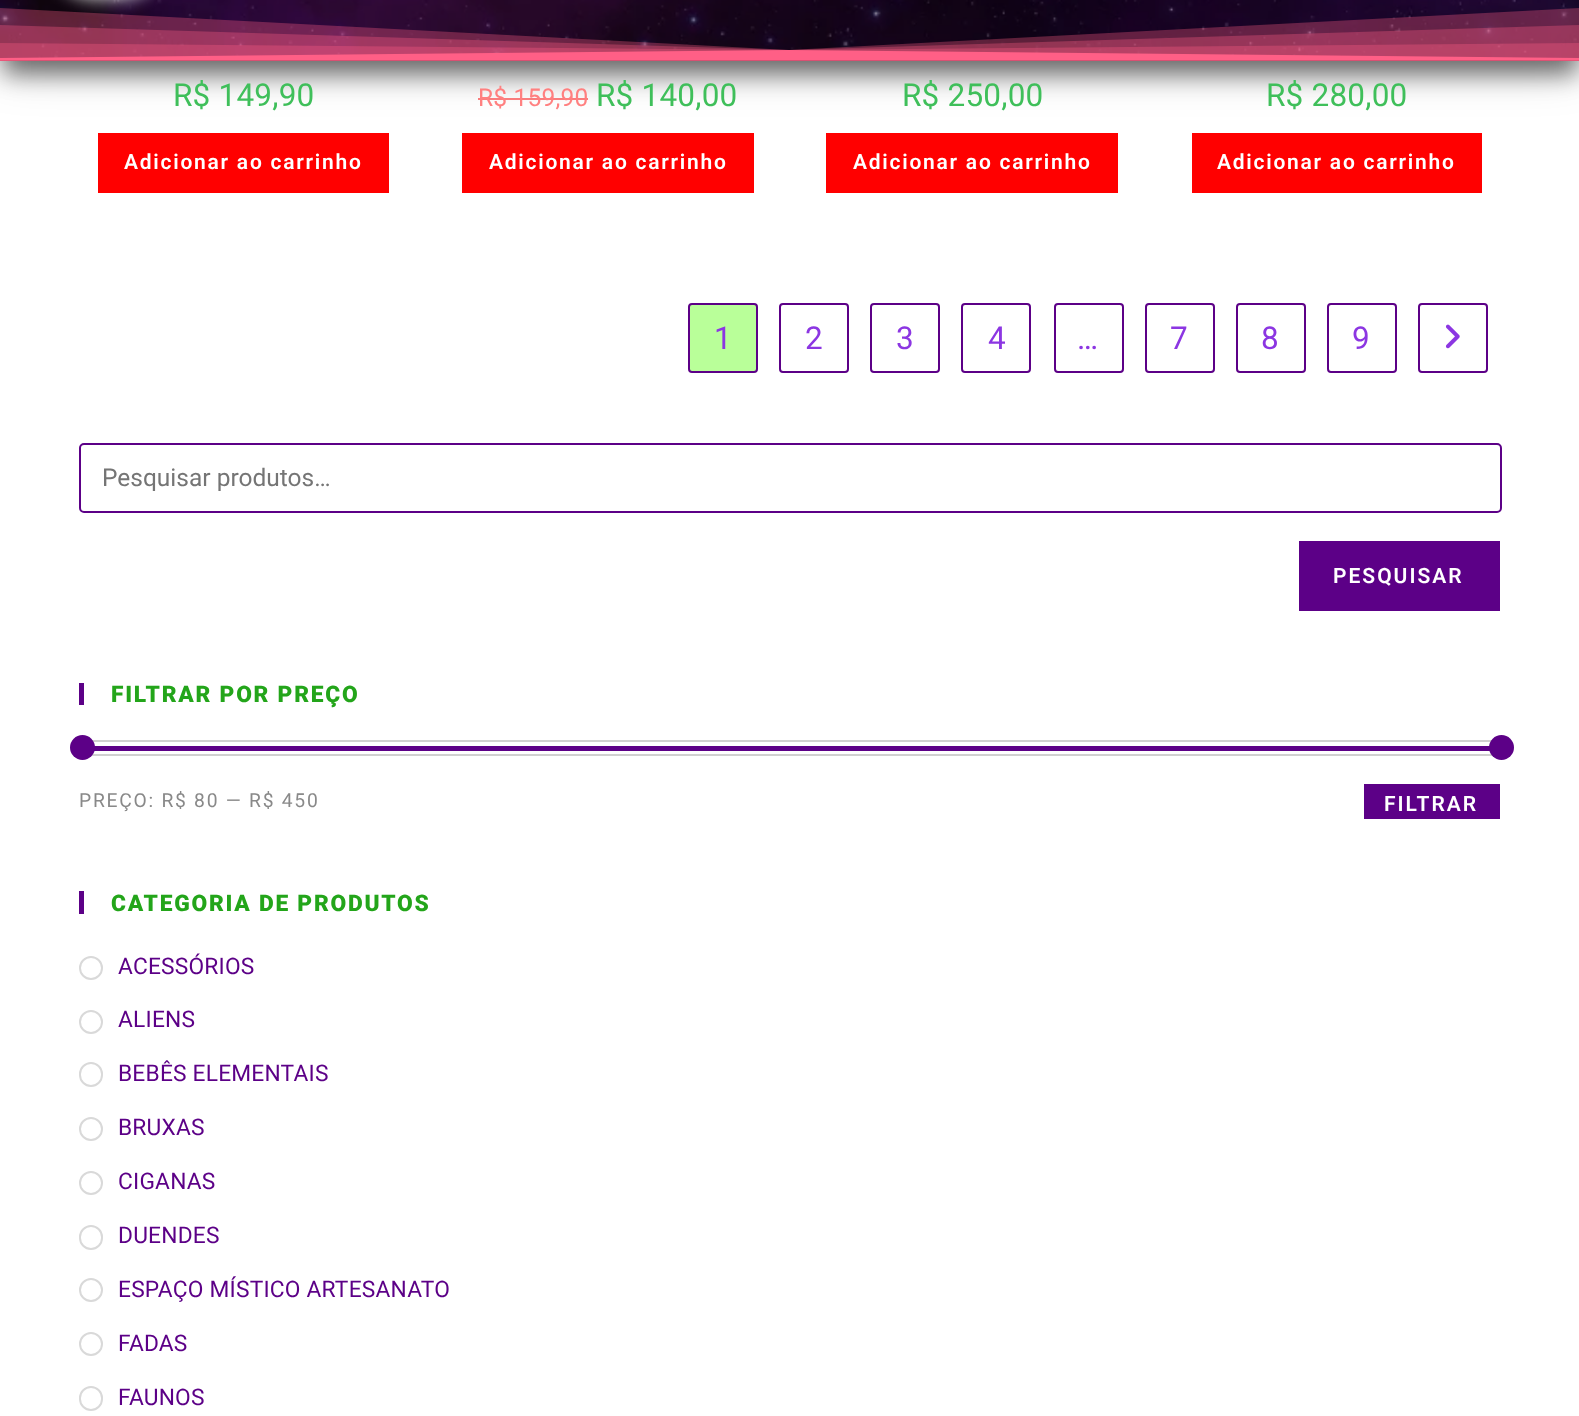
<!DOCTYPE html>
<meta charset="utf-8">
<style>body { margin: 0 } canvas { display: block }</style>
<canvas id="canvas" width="1579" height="1416"></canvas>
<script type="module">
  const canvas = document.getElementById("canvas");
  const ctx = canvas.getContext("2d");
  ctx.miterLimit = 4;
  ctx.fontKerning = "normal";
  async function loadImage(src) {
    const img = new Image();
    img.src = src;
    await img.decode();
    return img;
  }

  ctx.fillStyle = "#ffffff";
  ctx.fillRect(0, 0, 1579, 1416);
  ctx.fillStyle = "#ff8080";
  ctx.fillRect(478, 98, 110, 2);
  ctx.fillStyle = "rgba(0, 0, 0, 0.5)";
  ctx.filter = "blur(11.5px)";
  ctx.beginPath();
  ctx.rect(4, -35, 1573, 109);
  ctx.fill();
  ctx.filter = "none";
  ctx.drawImage(await loadImage("img1.png"), 0, 0, 1579, 58);
  ctx.fillStyle = "rgba(255, 95, 134, 0.33)";
  ctx.beginPath();
  ctx.moveTo(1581, 61);
  ctx.lineTo(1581, 8);
  ctx.lineTo(789, 50);
  ctx.lineTo(-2, 8);
  ctx.lineTo(-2, 61);
  ctx.closePath();
  ctx.fill();
  ctx.beginPath();
  ctx.moveTo(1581, 61);
  ctx.lineTo(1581, 25);
  ctx.lineTo(789, 50);
  ctx.lineTo(-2, 25);
  ctx.lineTo(-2, 61);
  ctx.closePath();
  ctx.fill();
  ctx.beginPath();
  ctx.moveTo(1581, 61);
  ctx.lineTo(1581, 43);
  ctx.lineTo(789, 50);
  ctx.lineTo(-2, 43);
  ctx.lineTo(-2, 61);
  ctx.closePath();
  ctx.fill();
  ctx.fillStyle = "#ff5f86";
  ctx.beginPath();
  ctx.moveTo(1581, 61);
  ctx.lineTo(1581, 58);
  ctx.lineTo(789, 50);
  ctx.lineTo(-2, 58);
  ctx.lineTo(-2, 61);
  ctx.closePath();
  ctx.fill();
  ctx.fillStyle = "#ff0000";
  ctx.fillRect(98, 133, 291, 60);
  ctx.fillRect(462, 133, 292, 60);
  ctx.fillRect(826, 133, 292, 60);
  ctx.fillRect(1192, 133, 290, 60);
  ctx.save();
  ctx.beginPath();
  ctx.moveTo(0, 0);
  ctx.lineTo(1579, 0);
  ctx.lineTo(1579, 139);
  ctx.lineTo(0, 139);
  ctx.closePath();
  ctx.moveTo(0, -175);
  ctx.lineTo(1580, -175);
  ctx.lineTo(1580, 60);
  ctx.lineTo(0, 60);
  ctx.closePath();
  ctx.clip("evenodd");
  ctx.fillStyle = "rgba(0, 0, 0, 0.3)";
  ctx.filter = "blur(26px)";
  ctx.beginPath();
  ctx.rect(0, -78, 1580, 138);
  ctx.fill();
  ctx.filter = "none";
  ctx.restore();
  ctx.fillStyle = "#ffffff";
  ctx.filter = "blur(9px)";
  ctx.beginPath();
  ctx.roundRect(53, -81, 108, 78, 54);
  ctx.fill();
  ctx.filter = "none";
  ctx.letterSpacing = "0.2px";
  ctx.font = "31.5px Roboto";
  ctx.fillStyle = "#3fbf5a";
  ctx.fillText("R$ 149,90", 173, 106);
  ctx.letterSpacing = "1.75px";
  ctx.font = "600 21px Roboto";
  ctx.fillStyle = "#ffffff";
  ctx.fillText("Adicionar ao carrinho", 124, 169);
  ctx.letterSpacing = "0.2px";
  ctx.font = "24.5px Roboto";
  ctx.fillStyle = "#ff8080";
  ctx.fillText("R$ 159,90", 478, 106);
  ctx.font = "31.5px Roboto";
  ctx.fillStyle = "#3fbf5a";
  ctx.fillText("R$ 140,00", 596, 106);
  ctx.letterSpacing = "1.75px";
  ctx.font = "600 21px Roboto";
  ctx.fillStyle = "#ffffff";
  ctx.fillText("Adicionar ao carrinho", 489, 169);
  ctx.letterSpacing = "0.2px";
  ctx.font = "31.5px Roboto";
  ctx.fillStyle = "#3fbf5a";
  ctx.fillText("R$ 250,00", 902, 106);
  ctx.letterSpacing = "1.75px";
  ctx.font = "600 21px Roboto";
  ctx.fillStyle = "#ffffff";
  ctx.fillText("Adicionar ao carrinho", 853, 169);
  ctx.letterSpacing = "0.2px";
  ctx.font = "31.5px Roboto";
  ctx.fillStyle = "#3fbf5a";
  ctx.fillText("R$ 280,00", 1266, 106);
  ctx.letterSpacing = "1.75px";
  ctx.font = "600 21px Roboto";
  ctx.fillStyle = "#ffffff";
  ctx.fillText("Adicionar ao carrinho", 1217, 169);
  ctx.fillStyle = "#b9ff99";
  ctx.beginPath();
  ctx.roundRect(689, 304, 68, 68, 3);
  ctx.fill();
  ctx.strokeStyle = "#5c0087";
  ctx.lineWidth = 2;
  ctx.stroke();
  ctx.letterSpacing = "0.2px";
  ctx.font = "31.5px Roboto";
  ctx.fillStyle = "#8c36e2";
  ctx.fillText("1", 714, 349);
  ctx.beginPath();
  ctx.roundRect(780, 304, 68, 68, 3);
  ctx.stroke();
  ctx.fillText("2", 805, 349);
  ctx.beginPath();
  ctx.roundRect(871, 304, 68, 68, 3);
  ctx.stroke();
  ctx.fillText("3", 896, 349);
  ctx.beginPath();
  ctx.roundRect(962, 304, 68, 68, 3);
  ctx.stroke();
  ctx.fillText("4", 988, 349);
  ctx.beginPath();
  ctx.roundRect(1055, 304, 68, 68, 3);
  ctx.stroke();
  ctx.fillText("…", 1077, 349);
  ctx.beginPath();
  ctx.roundRect(1146, 304, 68, 68, 3);
  ctx.stroke();
  ctx.fillText("7", 1170, 349);
  ctx.beginPath();
  ctx.roundRect(1237, 304, 68, 68, 3);
  ctx.stroke();
  ctx.fillText("8", 1261, 349);
  ctx.beginPath();
  ctx.roundRect(1328, 304, 68, 68, 3);
  ctx.stroke();
  ctx.fillText("9", 1352, 349);
  ctx.beginPath();
  ctx.roundRect(1419, 304, 68, 68, 3);
  ctx.stroke();
  ctx.drawImage(await loadImage("img2.png"), 1445, 324, 15, 25);
  ctx.beginPath();
  ctx.roundRect(80, 444, 1421, 68, 4);
  ctx.stroke();
  ctx.letterSpacing = "0px";
  ctx.font = "24.5px Roboto";
  ctx.fillStyle = "#757575";
  ctx.fillText("Pesquisar produtos…", 102, 486);
  ctx.fillStyle = "#5c0087";
  ctx.fillRect(1299, 541, 201, 70);
  ctx.letterSpacing = "2px";
  ctx.font = "600 21px Roboto";
  ctx.fillStyle = "#ffffff";
  ctx.fillText("PESQUISAR", 1333, 583);
  ctx.fillStyle = "#5c0087";
  ctx.fillRect(79, 683, 5, 22);
  ctx.letterSpacing = "1.75px";
  ctx.font = "900 22.75px Roboto";
  ctx.fillStyle = "#23a51a";
  ctx.fillText("FILTRAR POR PREÇO", 111, 702);
  ctx.strokeStyle = "#d0d0d0";
  ctx.strokeRect(80, 741, 1421, 14);
  ctx.fillStyle = "#5c0087";
  ctx.fillRect(94, 746, 1396, 5);
  ctx.beginPath();
  ctx.arc(82.5, 747.5, 12.5, 0, Math.PI * 2);
  ctx.fill();
  ctx.beginPath();
  ctx.arc(1501.5, 747.5, 12.5, 0, Math.PI * 2);
  ctx.fill();
  ctx.font = "19.25px Roboto";
  ctx.fillStyle = "#898989";
  ctx.fillText("PREÇO: R$ 80 — R$ 450", 79, 807);
  ctx.fillStyle = "#5c0087";
  ctx.fillRect(1364, 784, 136, 35);
  ctx.letterSpacing = "2px";
  ctx.font = "600 21px Roboto";
  ctx.fillStyle = "#ffffff";
  ctx.fillText("FILTRAR", 1384, 811);
  ctx.fillStyle = "#5c0087";
  ctx.fillRect(79, 891, 5, 23);
  ctx.letterSpacing = "1.75px";
  ctx.font = "900 22.75px Roboto";
  ctx.fillStyle = "#23a51a";
  ctx.fillText("CATEGORIA DE PRODUTOS", 111, 911);
  ctx.beginPath();
  ctx.arc(91, 968, 11, 0, Math.PI * 2);
  ctx.strokeStyle = "#d9d9d9";
  ctx.stroke();
  ctx.letterSpacing = "0.2px";
  ctx.font = "22.75px Roboto";
  ctx.fillStyle = "#5c0087";
  ctx.fillText("ACESSÓRIOS", 118, 974);
  ctx.beginPath();
  ctx.arc(91, 1022, 11, 0, Math.PI * 2);
  ctx.stroke();
  ctx.fillText("ALIENS", 118, 1027);
  ctx.beginPath();
  ctx.roundRect(80, 1063, 22, 23, 11);
  ctx.stroke();
  ctx.fillText("BEBÊS ELEMENTAIS", 118, 1081);
  ctx.beginPath();
  ctx.arc(91, 1129, 11, 0, Math.PI * 2);
  ctx.stroke();
  ctx.fillText("BRUXAS", 118, 1135);
  ctx.beginPath();
  ctx.arc(91, 1183, 11, 0, Math.PI * 2);
  ctx.stroke();
  ctx.fillText("CIGANAS", 118, 1189);
  ctx.beginPath();
  ctx.roundRect(80, 1226, 22, 23, 11);
  ctx.stroke();
  ctx.fillText("DUENDES", 118, 1243);
  ctx.beginPath();
  ctx.arc(91, 1290, 11, 0, Math.PI * 2);
  ctx.stroke();
  ctx.fillText("ESPAÇO MÍSTICO ARTESANATO", 118, 1297);
  ctx.beginPath();
  ctx.arc(91, 1344, 11, 0, Math.PI * 2);
  ctx.stroke();
  ctx.fillText("FADAS", 118, 1351);
  ctx.beginPath();
  ctx.roundRect(80, 1387, 22, 23, 11);
  ctx.stroke();
  ctx.fillText("FAUNOS", 118, 1405);
</script>
